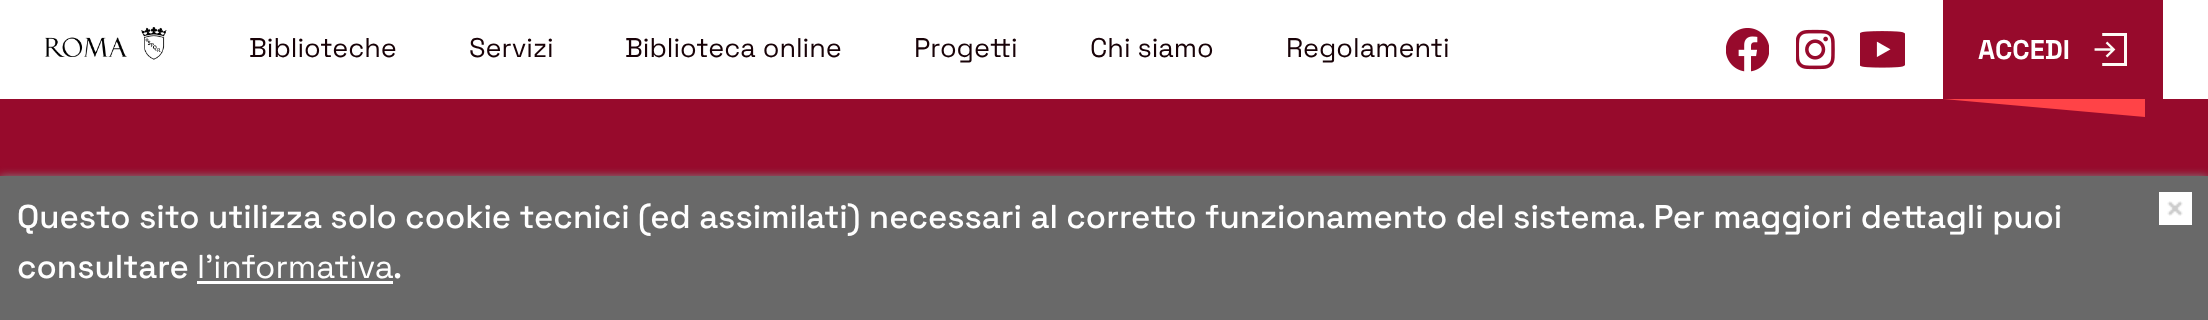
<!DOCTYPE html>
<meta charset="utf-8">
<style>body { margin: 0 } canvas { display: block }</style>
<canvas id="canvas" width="2208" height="320"></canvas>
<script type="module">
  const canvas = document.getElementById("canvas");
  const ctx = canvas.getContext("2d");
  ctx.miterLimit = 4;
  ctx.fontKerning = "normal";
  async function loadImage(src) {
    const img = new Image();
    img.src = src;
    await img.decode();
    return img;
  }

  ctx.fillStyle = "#ffffff";
  ctx.fillRect(0, 0, 2208, 320);
  ctx.drawImage(await loadImage("img1.png"), 45, 27, 122, 33);
  ctx.font = "300 27px Space Grotesk";
  ctx.fillStyle = "#180207";
  ctx.fillText("Biblioteche", 249, 57);
  ctx.fillText("Servizi", 469, 57);
  ctx.fillText("Biblioteca online", 625, 57);
  ctx.fillText("Progetti", 914, 57);
  ctx.fillText("Chi siamo", 1090, 57);
  ctx.fillText("Regolamenti", 1286, 57);
  ctx.drawImage(await loadImage("img2.png"), 1726, 28, 43, 44);
  ctx.drawImage(await loadImage("img3.png"), 1796, 29, 39, 41);
  ctx.drawImage(await loadImage("img4.png"), 1860, 31, 45, 37);
  ctx.fillStyle = "#970a2c";
  ctx.fillRect(1943, 0, 220, 99);
  ctx.drawImage(await loadImage("img5.png"), 2094, 33, 33, 33);
  ctx.font = "300 27px 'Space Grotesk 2'";
  ctx.fillStyle = "#ffffff";
  ctx.fillText("ACCEDI", 1978, 59);
  ctx.fillStyle = "#970a2c";
  ctx.fillRect(0, 99, 2208, 77);
  ctx.fillStyle = "#ff4347";
  ctx.beginPath();
  ctx.moveTo(1943, 99);
  ctx.lineTo(2145, 99);
  ctx.lineTo(2145, 117);
  ctx.closePath();
  ctx.fill();
  ctx.fillStyle = "#808080";
  ctx.filter = "blur(4px)";
  ctx.beginPath();
  ctx.rect(0, 176, 2208, 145);
  ctx.fill();
  ctx.filter = "none";
  ctx.fillStyle = "#696969";
  ctx.fillRect(0, 176, 2208, 144);
  ctx.font = "300 33px 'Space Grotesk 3'";
  ctx.fillStyle = "#ffffff";
  ctx.fillText("Questo sito utilizza solo cookie tecnici (ed assimilati) necessari al corretto funzionamento del sistema. Per maggiori dettagli puoi", 17, 228);
  ctx.fillText("consultare", 17, 278);
  ctx.font = "300 33px Space Grotesk";
  ctx.fillText("l'informativa", 197, 278);
  ctx.fillRect(197, 281, 196, 3);
  ctx.font = "300 33px 'Space Grotesk 3'";
  ctx.fillText(".", 393, 278);
  ctx.fillRect(2159, 192, 33, 33);
  ctx.drawImage(await loadImage("img6.png"), 2167, 201, 16, 15);
</script>
